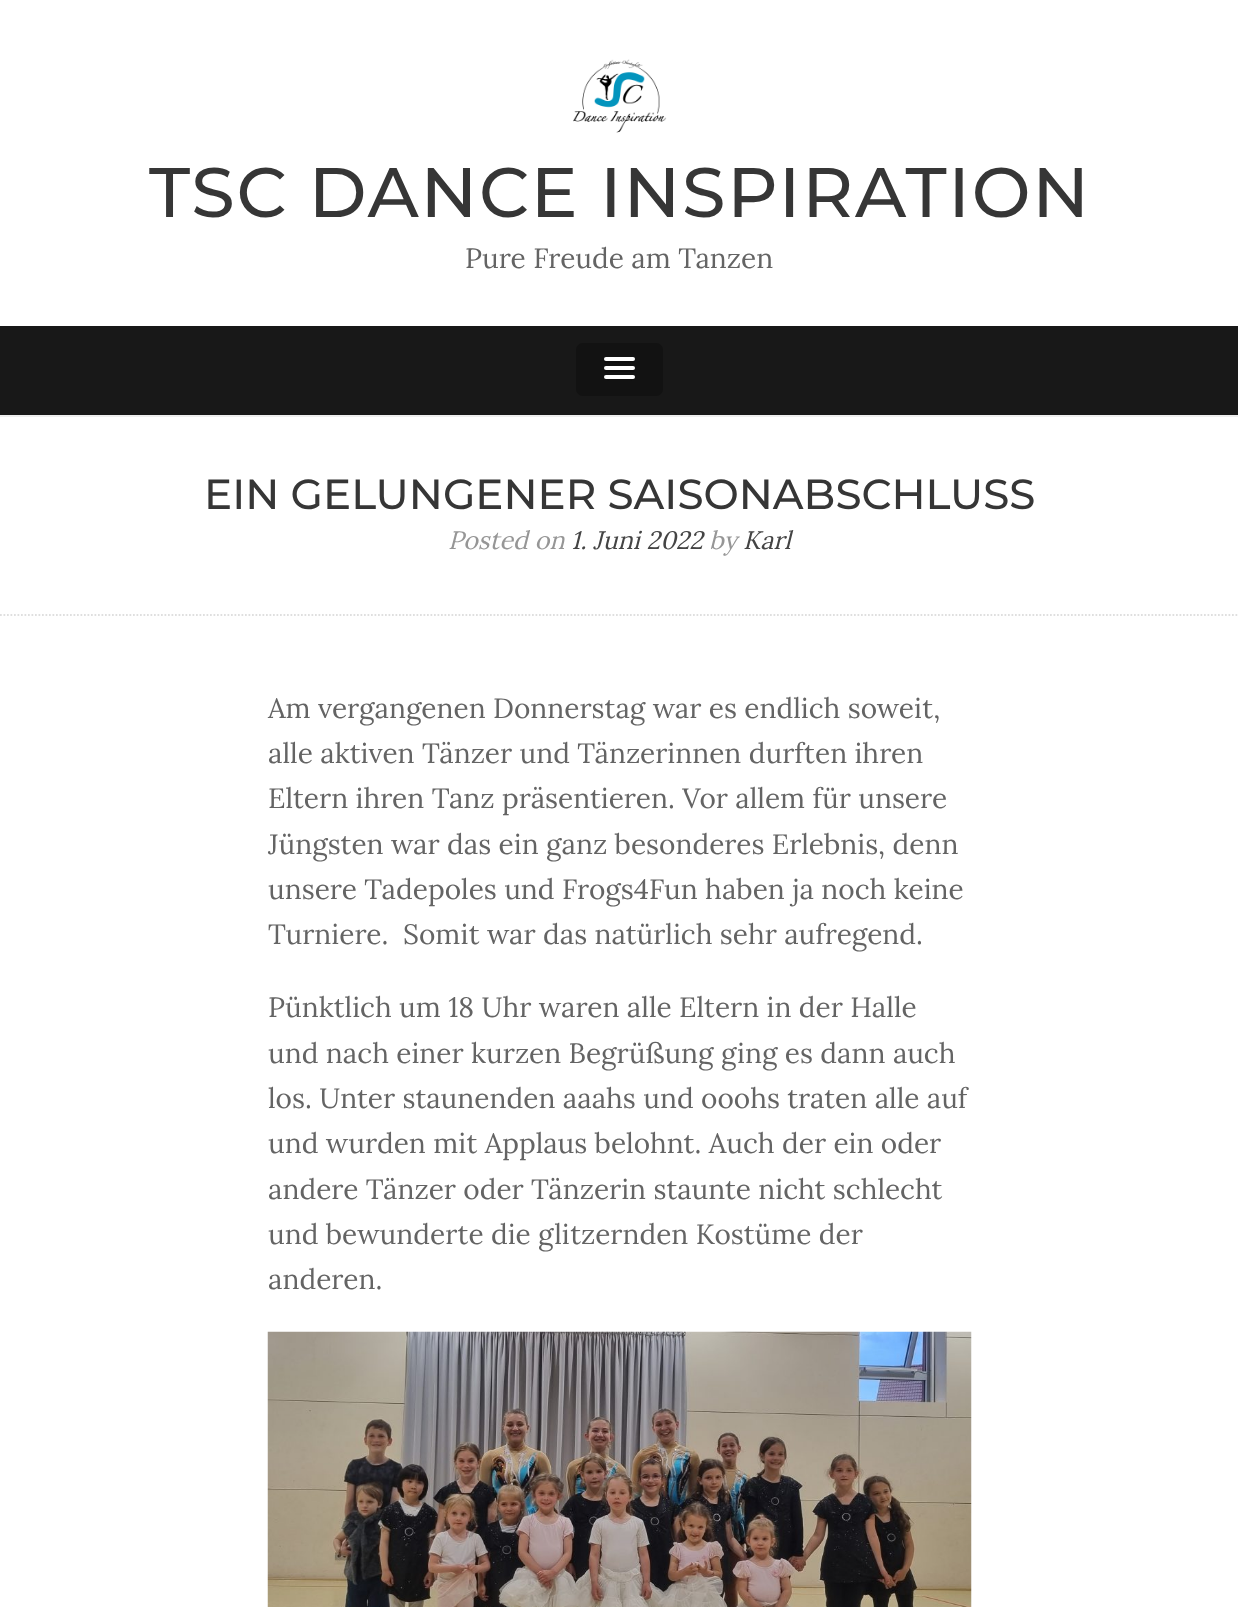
<!DOCTYPE html>
<meta charset="utf-8">
<style>body { margin: 0 } canvas { display: block }</style>
<canvas id="canvas" width="1238" height="1607"></canvas>
<script type="module">
  const canvas = document.getElementById("canvas");
  const ctx = canvas.getContext("2d");
  ctx.miterLimit = 4;
  ctx.fontKerning = "normal";
  async function loadImage(src) {
    const img = new Image();
    img.src = src;
    await img.decode();
    return img;
  }

  ctx.fillStyle = "#ffffff";
  ctx.fillRect(0, 0, 1238, 1607);
  ctx.fillStyle = "#eeeeee";
  ctx.fillRect(0, 415, 1238, 2);
  ctx.drawImage(await loadImage("img1.png"), 573, 59, 94, 74);
  ctx.letterSpacing = "1.75px";
  ctx.font = "100 70px Montserrat";
  ctx.fillStyle = "#363636";
  ctx.fillText("TSC DANCE INSPIRATION", 149, 217);
  ctx.letterSpacing = "0px";
  ctx.font = "28px Lora";
  ctx.fillStyle = "#646464";
  ctx.fillText("Pure Freude am Tanzen", 465, 268);
  ctx.fillStyle = "#181818";
  ctx.fillRect(0, 326, 1238, 89);
  ctx.fillStyle = "#121212";
  ctx.beginPath();
  ctx.roundRect(576, 343, 87, 53, 7);
  ctx.fill();
  ctx.fillStyle = "#0e0e0e";
  ctx.beginPath();
  ctx.moveTo(604.5, 360);
  ctx.bezierCurveTo(602, 364, 610, 363, 610.5, 363);
  ctx.lineTo(628.5, 363);
  ctx.bezierCurveTo(629, 363, 637, 364, 634.5, 360);
  ctx.lineTo(633.5, 360.5);
  ctx.lineTo(605.5, 360.5);
  ctx.closePath();
  ctx.fill();
  ctx.fillStyle = "#ffffff";
  ctx.beginPath();
  ctx.roundRect(604, 357, 31, 4, 2);
  ctx.fill();
  ctx.fillStyle = "#0e0e0e";
  ctx.beginPath();
  ctx.moveTo(604.5, 369);
  ctx.lineTo(604, 370.5);
  ctx.bezierCurveTo(604.5, 373, 609.5, 372, 610.5, 372);
  ctx.lineTo(628.5, 372);
  ctx.bezierCurveTo(629.5, 372, 634.5, 373, 635, 370.5);
  ctx.lineTo(634.5, 369);
  ctx.bezierCurveTo(633.5, 369.5, 605.5, 369.5, 604.5, 369);
  ctx.closePath();
  ctx.fill();
  ctx.fillStyle = "#ffffff";
  ctx.beginPath();
  ctx.roundRect(604, 366, 31, 4, 2);
  ctx.fill();
  ctx.fillStyle = "#0e0e0e";
  ctx.beginPath();
  ctx.moveTo(604, 377.5);
  ctx.bezierCurveTo(603, 381, 609.5, 380, 610.5, 380);
  ctx.lineTo(628.5, 380);
  ctx.bezierCurveTo(629.5, 380, 636, 381, 635, 377.5);
  ctx.lineTo(633.5, 378);
  ctx.lineTo(605.5, 378);
  ctx.closePath();
  ctx.fill();
  ctx.fillStyle = "#ffffff";
  ctx.beginPath();
  ctx.roundRect(604, 375, 31, 4, 2);
  ctx.fill();
  ctx.beginPath();
  ctx.moveTo(0, 615);
  ctx.lineTo(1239, 615);
  ctx.strokeStyle = "#dfdfdf";
  ctx.lineWidth = 1.8;
  ctx.setLineDash([1.75, 1.75]);
  ctx.stroke();
  ctx.font = "100 42px Montserrat";
  ctx.fillStyle = "#363636";
  ctx.fillText("EIN GELUNGENER SAISONABSCHLUSS", 204, 509);
  ctx.font = "italic 25.25px Lora";
  ctx.fillStyle = "#969696";
  ctx.fillText("Posted on", 448, 549);
  ctx.fillStyle = "#444444";
  ctx.fillText("1. Juni 2022", 571, 549);
  ctx.fillStyle = "#969696";
  ctx.fillText("by", 709, 549);
  ctx.fillStyle = "#444444";
  ctx.fillText("Karl", 743, 549);
  ctx.font = "28px Lora";
  ctx.fillStyle = "#646464";
  ctx.fillText("Am vergangenen Donnerstag war es endlich soweit,", 268, 718);
  ctx.fillText("alle aktiven Tänzer und Tänzerinnen durften ihren", 268, 763);
  ctx.fillText("Eltern ihren Tanz präsentieren. Vor allem für unsere", 268, 808);
  ctx.fillText("Jüngsten war das ein ganz besonderes Erlebnis, denn", 268, 854);
  ctx.fillText("unsere Tadepoles und Frogs4Fun haben ja noch keine", 268, 899);
  ctx.fillText("Turniere.  Somit war das natürlich sehr aufregend.", 268, 944);
  ctx.fillText("Pünktlich um 18 Uhr waren alle Eltern in der Halle", 268, 1017);
  ctx.fillText("und nach einer kurzen Begrüßung ging es dann auch", 268, 1063);
  ctx.fillText("los. Unter staunenden aaahs und ooohs traten alle auf", 268, 1108);
  ctx.fillText("und wurden mit Applaus belohnt. Auch der ein oder", 268, 1153);
  ctx.fillText("andere Tänzer oder Tänzerin staunte nicht schlecht", 268, 1199);
  ctx.fillText("und bewunderte die glitzernden Kostüme der", 268, 1244);
  ctx.fillText("anderen.", 268, 1289);
  ctx.drawImage(await loadImage("img2.png"), 267, 1331, 705, 276);
</script>
